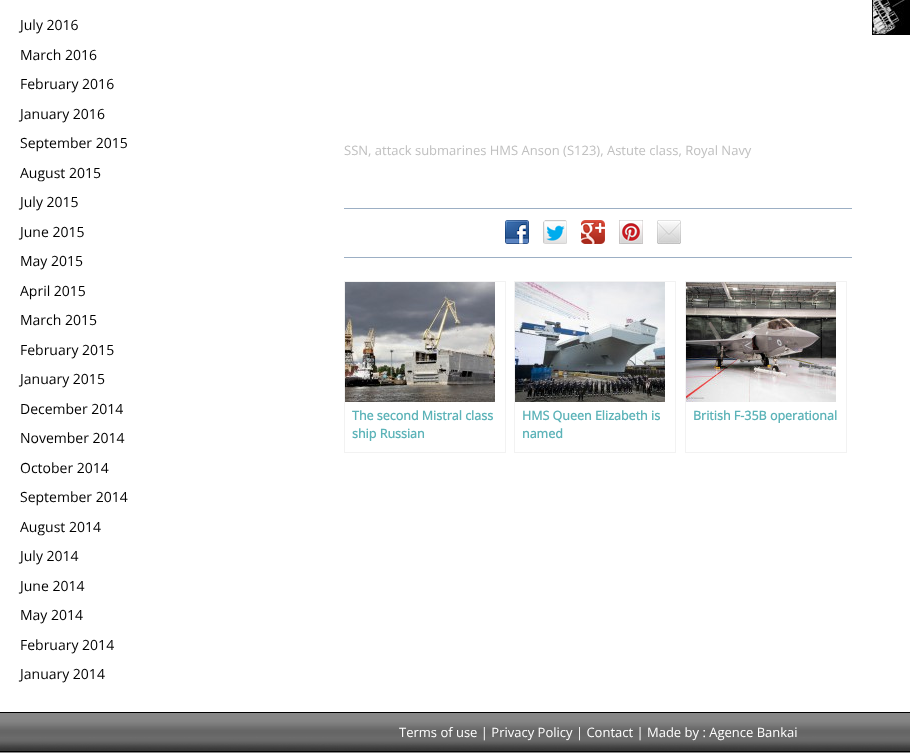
<!DOCTYPE html>
<meta charset="utf-8">
<style>body { margin: 0 } canvas { display: block }</style>
<canvas id="canvas" width="910" height="753"></canvas>
<script type="module">
  const canvas = document.getElementById("canvas");
  const ctx = canvas.getContext("2d");
  ctx.miterLimit = 4;
  ctx.fontKerning = "normal";
  async function loadImage(src) {
    const img = new Image();
    img.src = src;
    await img.decode();
    return img;
  }

  ctx.fillStyle = "#ffffff";
  ctx.fillRect(0, 0, 910, 753);
  ctx.font = "14px Open Sans";
  ctx.fillStyle = "#000000";
  ctx.fillText("July 2016", 20, 30);
  ctx.fillText("March 2016", 20, 60);
  ctx.fillText("February 2016", 20, 89);
  ctx.fillText("January 2016", 20, 119);
  ctx.fillText("September 2015", 20, 148);
  ctx.fillText("August 2015", 20, 178);
  ctx.fillText("July 2015", 20, 207);
  ctx.fillText("June 2015", 20, 237);
  ctx.fillText("May 2015", 20, 266);
  ctx.fillText("April 2015", 20, 296);
  ctx.fillText("March 2015", 20, 325);
  ctx.fillText("February 2015", 20, 355);
  ctx.fillText("January 2015", 20, 384);
  ctx.fillText("December 2014", 20, 414);
  ctx.fillText("November 2014", 20, 443);
  ctx.fillText("October 2014", 20, 473);
  ctx.fillText("September 2014", 20, 502);
  ctx.fillText("August 2014", 20, 532);
  ctx.fillText("July 2014", 20, 561);
  ctx.fillText("June 2014", 20, 591);
  ctx.fillText("May 2014", 20, 620);
  ctx.fillText("February 2014", 20, 650);
  ctx.fillText("January 2014", 20, 679);
  ctx.font = "13px Open Sans";
  ctx.fillStyle = "#c0c0c0";
  ctx.fillText("SSN, attack submarines HMS Anson (S123), Astute class, Royal Navy", 344, 155);
  ctx.fillStyle = "#9cafc4";
  ctx.fillRect(344, 208, 508, 1);
  ctx.drawImage(await loadImage("img1.png"), 505, 220, 24, 24);
  ctx.drawImage(await loadImage("img2.png"), 543, 220, 24, 24);
  ctx.drawImage(await loadImage("img3.png"), 581, 220, 24, 24);
  ctx.drawImage(await loadImage("img4.png"), 619, 220, 24, 24);
  ctx.drawImage(await loadImage("img5.png"), 657, 220, 24, 24);
  ctx.fillRect(344, 257, 508, 1);
  ctx.strokeStyle = "#f2f2f2";
  ctx.strokeRect(344.5, 281.5, 161, 171);
  ctx.drawImage(await loadImage("img6.png"), 345, 282, 150, 120);
  ctx.font = "bold 12.5px Open Sans";
  ctx.fillStyle = "#5cb3b8";
  ctx.fillText("The second Mistral class", 352, 420);
  ctx.fillText("ship Russian", 352, 438);
  ctx.strokeRect(514.5, 281.5, 161, 171);
  ctx.drawImage(await loadImage("img7.png"), 515, 282, 150, 120);
  ctx.fillText("HMS Queen Elizabeth is", 522, 420);
  ctx.fillText("named", 522, 438);
  ctx.strokeRect(685.5, 281.5, 161, 171);
  ctx.drawImage(await loadImage("img8.png"), 686, 282, 150, 120);
  ctx.fillText("British F-35B operational", 693, 420);
  ctx.drawImage(await loadImage("img9.png"), 872, 0, 38, 35);
  ctx.drawImage(await loadImage("img10.png"), 0, 712, 910, 41);
  ctx.font = "13px Open Sans";
  ctx.fillStyle = "#ffffff";
  ctx.fillText("Terms of use | Privacy Policy | Contact | Made by : Agence Bankai", 399, 737);
</script>
